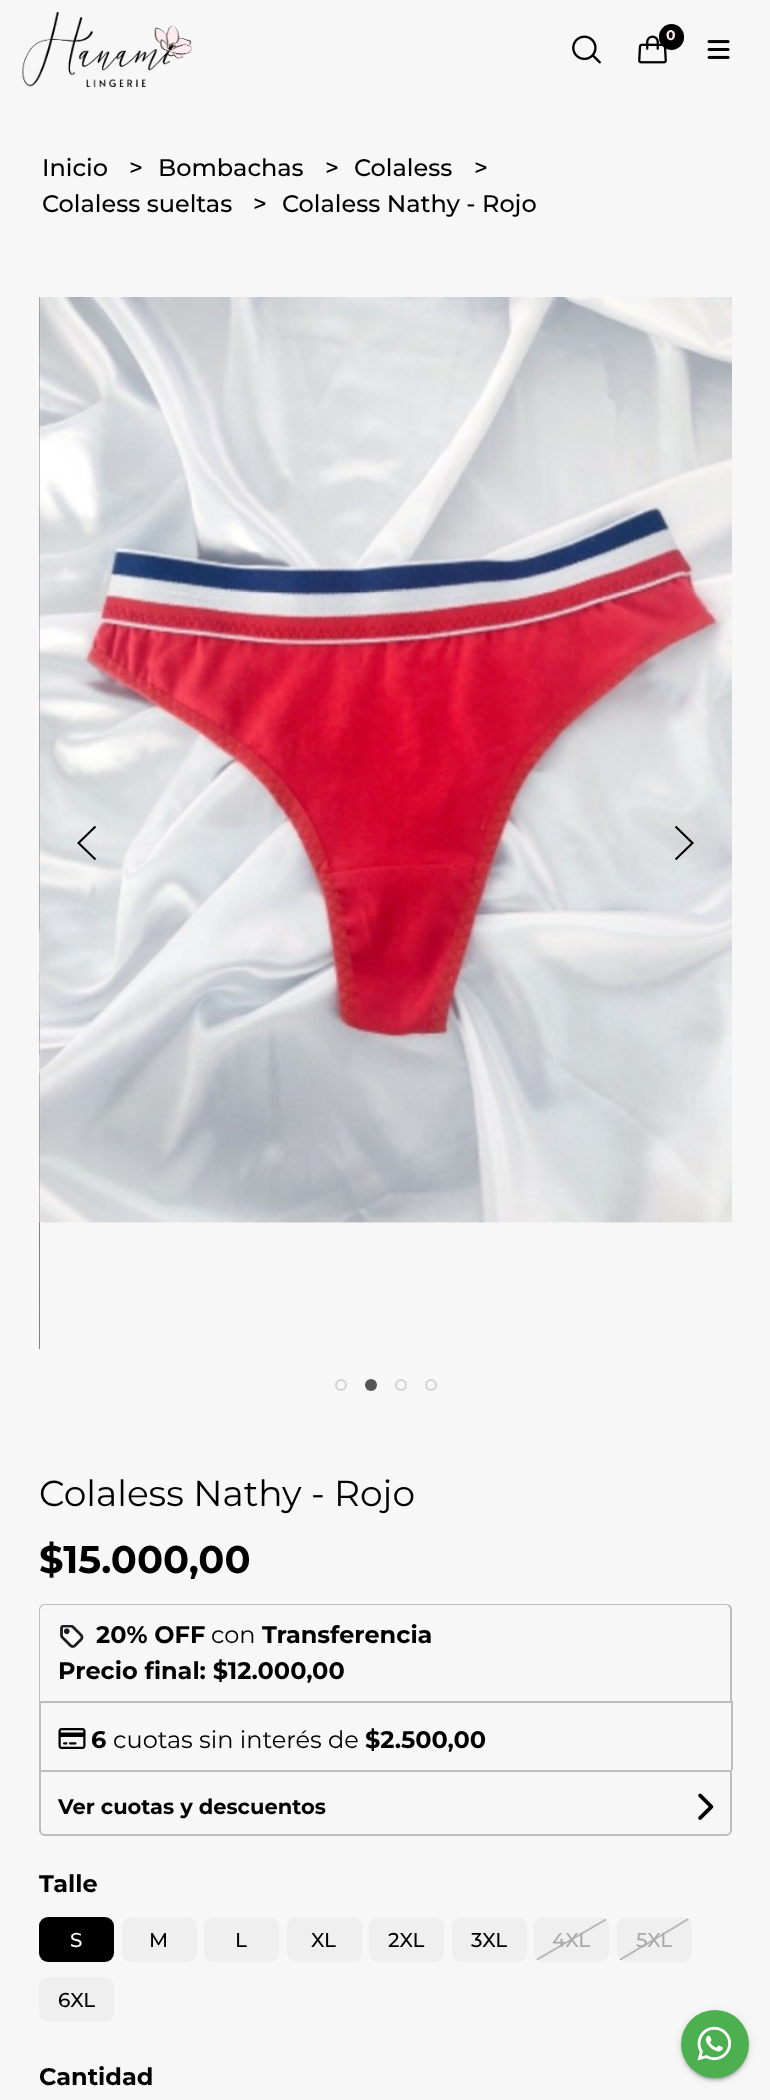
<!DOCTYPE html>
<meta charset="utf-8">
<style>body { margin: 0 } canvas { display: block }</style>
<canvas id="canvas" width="770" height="2100"></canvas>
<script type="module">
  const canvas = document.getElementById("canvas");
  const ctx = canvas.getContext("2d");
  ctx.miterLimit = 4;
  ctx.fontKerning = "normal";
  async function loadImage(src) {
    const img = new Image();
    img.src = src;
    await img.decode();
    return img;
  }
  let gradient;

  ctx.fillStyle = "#f7f7f7";
  ctx.fillRect(0, 0, 770, 2100);
  ctx.drawImage(await loadImage("img1.png"), 22, 12, 170, 75);
  ctx.drawImage(await loadImage("img2.png"), 572, 35, 29, 29);
  ctx.drawImage(await loadImage("img3.png"), 638, 35, 29, 29);
  ctx.fillStyle = "#000000";
  ctx.beginPath();
  ctx.roundRect(659, 24, 25, 26, 12.5);
  ctx.fill();
  ctx.font = "bold 14px Montserrat";
  ctx.fillStyle = "#feebed";
  ctx.fillText("0", 666, 40);
  ctx.drawImage(await loadImage("img4.png"), 707, 40, 23, 19);
  ctx.font = "500 24px Montserrat";
  ctx.fillStyle = "#000000";
  ctx.fillText("Inicio", 42, 176);
  ctx.fillText(">", 129, 176);
  ctx.fillText("Bombachas", 158, 176);
  ctx.fillText(">", 325, 176);
  ctx.fillText("Colaless", 354, 176);
  ctx.fillText(">", 474, 176);
  ctx.fillText("Colaless sueltas", 42, 212);
  ctx.fillText(">", 253, 212);
  ctx.fillText("Colaless Nathy - Rojo", 282, 212);
  ctx.drawImage(await loadImage("img5.png"), 39, 297, 1, 1052);
  ctx.drawImage(await loadImage("img6.png"), 39, 297, 693, 926);
  ctx.beginPath();
  ctx.moveTo(95.5, 826.5);
  ctx.lineTo(78.5, 843);
  ctx.lineTo(95.5, 859.5);
  ctx.strokeStyle = "#000000";
  ctx.lineWidth = 2.1;
  ctx.stroke();
  ctx.beginPath();
  ctx.moveTo(675.5, 859.5);
  ctx.lineTo(692.5, 843);
  ctx.lineTo(675.5, 826.5);
  ctx.stroke();
  ctx.beginPath();
  ctx.arc(341, 1385, 5, 0, Math.PI * 2);
  ctx.strokeStyle = "#d2d2d2";
  ctx.lineWidth = 2;
  ctx.stroke();
  ctx.fillStyle = "#555555";
  ctx.beginPath();
  ctx.arc(371, 1385, 6, 0, Math.PI * 2);
  ctx.fill();
  ctx.beginPath();
  ctx.arc(401, 1385, 5, 0, Math.PI * 2);
  ctx.stroke();
  ctx.beginPath();
  ctx.arc(431, 1385, 5, 0, Math.PI * 2);
  ctx.stroke();
  ctx.font = "36px Montserrat";
  ctx.fillStyle = "#000000";
  ctx.fillText("Colaless Nathy - Rojo", 39, 1506);
  ctx.font = "bold 38.5px Montserrat";
  ctx.fillText("$15.000,00", 39, 1573);
  ctx.fillStyle = "#bdbdbd";
  ctx.beginPath();
  ctx.moveTo(45, 1604);
  ctx.lineTo(726, 1604);
  ctx.bezierCurveTo(729, 1604, 732, 1606, 732, 1610);
  ctx.lineTo(732, 1701);
  ctx.lineTo(39, 1701);
  ctx.lineTo(39, 1610);
  ctx.bezierCurveTo(39, 1606, 42, 1604, 45, 1604);
  ctx.closePath();
  ctx.moveTo(45, 1605);
  ctx.lineTo(726, 1605);
  ctx.bezierCurveTo(728, 1605, 730, 1607, 730, 1610);
  ctx.lineTo(730, 1701);
  ctx.lineTo(40, 1701);
  ctx.lineTo(40, 1610);
  ctx.bezierCurveTo(40, 1607, 43, 1605, 45, 1605);
  ctx.closePath();
  ctx.fill("evenodd");
  ctx.drawImage(await loadImage("img7.png"), 60, 1625, 24, 23);
  ctx.font = "bold 24px Montserrat";
  ctx.fillStyle = "#000000";
  ctx.fillText("20% OFF", 96, 1643);
  ctx.font = "24px Montserrat";
  ctx.fillText("con", 211, 1643);
  ctx.font = "bold 24px Montserrat";
  ctx.fillText("Transferencia", 262, 1643);
  ctx.fillText("Precio final: $12.000,00", 58, 1679);
  ctx.fillStyle = "#bdbdbd";
  ctx.fillRect(39, 1701, 693, 2);
  ctx.fillRect(731, 1701, 2, 69);
  ctx.fillRect(39, 1701, 2, 69);
  ctx.drawImage(await loadImage("img8.png"), 58, 1728, 28, 21);
  ctx.fillStyle = "#000000";
  ctx.fillText("6", 91, 1748);
  ctx.font = "24px Montserrat";
  ctx.fillText("cuotas sin interés de", 113, 1748);
  ctx.font = "bold 24px Montserrat";
  ctx.fillText("$2.500,00", 365, 1748);
  ctx.beginPath();
  ctx.roundRect(40, 1771, 691, 64, [0, 0, 5, 5]);
  ctx.strokeStyle = "#bdbdbd";
  ctx.stroke();
  ctx.font = "bold 21px Montserrat";
  ctx.fillText("Ver cuotas y descuentos", 58, 1814);
  ctx.drawImage(await loadImage("img9.png"), 698, 1793, 16, 27);
  ctx.font = "bold 24px Montserrat";
  ctx.fillText("Talle", 39, 1892);
  ctx.beginPath();
  ctx.roundRect(39, 1917, 75, 45, 9);
  ctx.fill();
  ctx.font = "500 20px Montserrat";
  ctx.fillStyle = "#ffffff";
  ctx.fillText("S", 70, 1947);
  ctx.fillStyle = "#efefef";
  ctx.beginPath();
  ctx.roundRect(122, 1917, 75, 45, 9);
  ctx.fill();
  ctx.fillStyle = "#000000";
  ctx.fillText("M", 149, 1947);
  ctx.fillStyle = "#efefef";
  ctx.beginPath();
  ctx.roundRect(204, 1917, 75, 45, 9);
  ctx.fill();
  ctx.fillStyle = "#000000";
  ctx.fillText("L", 235, 1947);
  ctx.fillStyle = "#efefef";
  ctx.beginPath();
  ctx.roundRect(287, 1917, 75, 45, 9);
  ctx.fill();
  ctx.fillStyle = "#000000";
  ctx.fillText("XL", 311, 1947);
  ctx.fillStyle = "#efefef";
  ctx.beginPath();
  ctx.roundRect(369, 1917, 75, 45, 9);
  ctx.fill();
  ctx.fillStyle = "#000000";
  ctx.fillText("2XL", 388, 1947);
  ctx.fillStyle = "#efefef";
  ctx.beginPath();
  ctx.roundRect(452, 1917, 75, 45, 9);
  ctx.fill();
  ctx.fillStyle = "#000000";
  ctx.fillText("3XL", 471, 1947);
  gradient = ctx.createLinearGradient(591, 1973, 552, 1906);
  gradient.addColorStop(0.48, "#efefef");
  gradient.addColorStop(0.5, "#aaaaaa");
  gradient.addColorStop(0.52, "#efefef");
  ctx.fillStyle = gradient;
  ctx.beginPath();
  ctx.roundRect(534, 1917, 75, 45, 9);
  ctx.fill();
  ctx.fillStyle = "#aaaaaa";
  ctx.fillText("4XL", 552, 1947);
  gradient = ctx.createLinearGradient(674, 1973, 634, 1906);
  gradient.addColorStop(0.48, "#efefef");
  gradient.addColorStop(0.5, "#aaaaaa");
  gradient.addColorStop(0.52, "#efefef");
  ctx.fillStyle = gradient;
  ctx.beginPath();
  ctx.roundRect(617, 1917, 75, 45, 9);
  ctx.fill();
  ctx.fillStyle = "#aaaaaa";
  ctx.fillText("5XL", 636, 1947);
  ctx.fillStyle = "#efefef";
  ctx.beginPath();
  ctx.roundRect(39, 1977, 75, 45, 9);
  ctx.fill();
  ctx.fillStyle = "#000000";
  ctx.fillText("6XL", 58, 2007);
  ctx.font = "bold 24px Montserrat";
  ctx.fillText("Cantidad", 39, 2085);
  ctx.fillStyle = "rgba(0, 0, 0, 0.2)";
  ctx.filter = "blur(1px)";
  ctx.beginPath();
  ctx.roundRect(684, 2018, 62, 61, 30.5);
  ctx.fill();
  ctx.filter = "none";
  ctx.fillStyle = "rgba(0, 0, 0, 0.12)";
  ctx.filter = "blur(4px)";
  ctx.beginPath();
  ctx.roundRect(681, 2012, 68, 67, 33.5);
  ctx.fill();
  ctx.filter = "none";
  ctx.fillStyle = "rgba(0, 0, 0, 0.14)";
  ctx.filter = "blur(1.5px)";
  ctx.beginPath();
  ctx.roundRect(681, 2013, 68, 68, 34);
  ctx.fill();
  ctx.filter = "none";
  ctx.fillStyle = "#4caf50";
  ctx.beginPath();
  ctx.arc(715, 2044, 34, 0, Math.PI * 2);
  ctx.fill();
  ctx.drawImage(await loadImage("img10.png"), 697, 2026, 35, 35);
</script>
